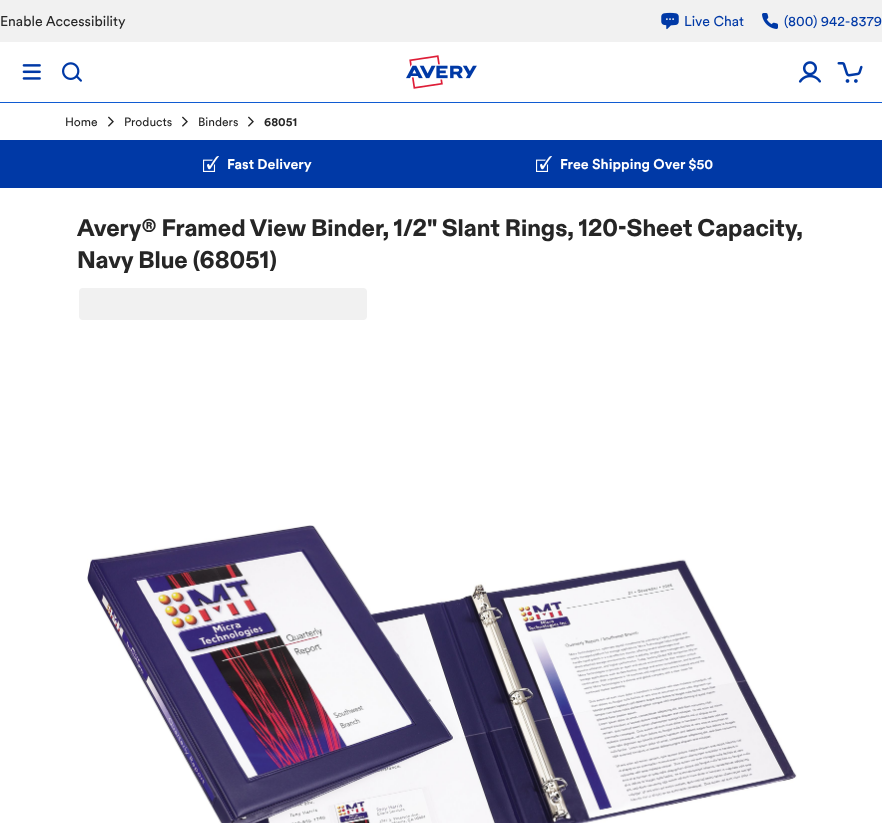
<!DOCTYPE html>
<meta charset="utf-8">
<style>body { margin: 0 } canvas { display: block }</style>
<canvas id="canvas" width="882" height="823"></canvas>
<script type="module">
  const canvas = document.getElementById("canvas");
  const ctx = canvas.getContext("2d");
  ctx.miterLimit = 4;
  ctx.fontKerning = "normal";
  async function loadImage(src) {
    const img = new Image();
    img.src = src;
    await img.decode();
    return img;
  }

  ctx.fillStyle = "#ffffff";
  ctx.fillRect(0, 0, 882, 823);
  ctx.fillStyle = "#f1f1f1";
  ctx.fillRect(0, 0, 882, 42);
  ctx.font = "14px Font";
  ctx.fillStyle = "#262626";
  ctx.fillText("Enable Accessibility", 0, 26);
  ctx.drawImage(await loadImage("img1.png"), 661, 12, 18, 18);
  ctx.fillStyle = "#0039a6";
  ctx.fillText("Live Chat", 684, 26);
  ctx.drawImage(await loadImage("img2.png"), 762, 13, 16, 16);
  ctx.fillText("(800) 942-8379", 784, 26);
  ctx.fillStyle = "#105bd2";
  ctx.fillRect(0, 102, 882, 1);
  ctx.drawImage(await loadImage("img3.png"), 22, 64, 19, 16);
  ctx.drawImage(await loadImage("img4.png"), 62, 62, 20, 20);
  ctx.drawImage(await loadImage("img5.png"), 406, 55, 71, 34);
  ctx.drawImage(await loadImage("img6.png"), 798, 61, 23, 22);
  ctx.drawImage(await loadImage("img7.png"), 837, 62, 26, 21);
  ctx.font = "12px Font";
  ctx.fillStyle = "#262626";
  ctx.fillText("Home", 65, 126);
  ctx.drawImage(await loadImage("img8.png"), 108, 116, 6, 11);
  ctx.fillText("Products", 124, 126);
  ctx.drawImage(await loadImage("img8.png"), 182, 116, 6, 11);
  ctx.fillText("Binders", 198, 126);
  ctx.drawImage(await loadImage("img8.png"), 248, 116, 6, 11);
  ctx.font = "bold 12px Font";
  ctx.fillText("68051", 264, 126);
  ctx.fillStyle = "#0039a6";
  ctx.fillRect(0, 140, 882, 48);
  ctx.drawImage(await loadImage("img9.png"), 203, 156, 16, 16);
  ctx.font = "bold 14px Font";
  ctx.fillStyle = "#ffffff";
  ctx.fillText("Fast Delivery", 227, 169);
  ctx.drawImage(await loadImage("img9.png"), 536, 156, 16, 16);
  ctx.fillText("Free Shipping Over $50", 560, 169);
  ctx.font = "900 24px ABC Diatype";
  ctx.fillStyle = "#262626";
  ctx.fillText("Avery® Framed View Binder, 1/2\" Slant Rings, 120-Sheet Capacity,", 77, 236);
  ctx.fillText("Navy Blue (68051)", 77, 268);
  ctx.fillStyle = "#f1f1f1";
  ctx.beginPath();
  ctx.roundRect(79, 288, 288, 32, 4);
  ctx.fill();
  ctx.drawImage(await loadImage("img10.png"), 87, 525, 710, 298);
</script>
